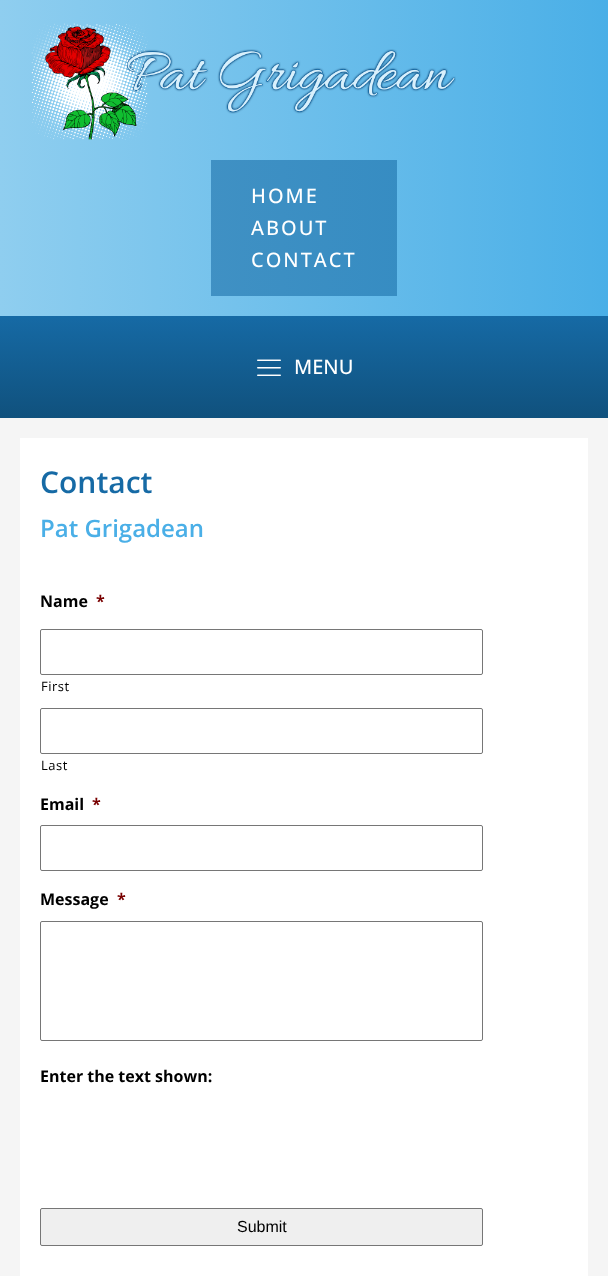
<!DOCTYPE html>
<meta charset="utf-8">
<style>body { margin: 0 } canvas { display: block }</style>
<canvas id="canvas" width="608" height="1276"></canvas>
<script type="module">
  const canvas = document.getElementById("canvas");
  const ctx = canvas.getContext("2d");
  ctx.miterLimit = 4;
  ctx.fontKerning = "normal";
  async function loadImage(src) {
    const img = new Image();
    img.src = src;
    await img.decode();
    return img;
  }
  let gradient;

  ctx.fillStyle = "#f5f5f5";
  ctx.fillRect(0, 0, 608, 1276);
  gradient = ctx.createLinearGradient(0, 158, 608, 158);
  gradient.addColorStop(0, "#8fceef");
  gradient.addColorStop(1, "#4aafe7");
  ctx.fillStyle = gradient;
  ctx.fillRect(0, 0, 608, 316);
  gradient = ctx.createLinearGradient(0, 158, 608, 158);
  gradient.addColorStop(0, "#4a95c5");
  gradient.addColorStop(1, "#2c88c1");
  ctx.fillStyle = gradient;
  ctx.fillRect(211, 160, 186, 136);
  ctx.drawImage(await loadImage("img1.png"), 31, 23, 425, 117);
  ctx.letterSpacing = "2px";
  ctx.font = "500 20px Open Sans";
  ctx.fillStyle = "#ffffff";
  ctx.fillText("HOME", 251, 203);
  ctx.fillText("ABOUT", 251, 235);
  ctx.fillText("CONTACT", 251, 267);
  gradient = ctx.createLinearGradient(304, 316, 304, 418);
  gradient.addColorStop(0, "#166aa5");
  gradient.addColorStop(1, "#10517d");
  ctx.fillStyle = gradient;
  ctx.fillRect(0, 316, 608, 102);
  ctx.drawImage(await loadImage("img2.png"), 257, 359, 24, 17);
  ctx.letterSpacing = "0px";
  ctx.fillStyle = "#ffffff";
  ctx.fillText("MENU", 294, 374);
  ctx.fillRect(20, 438, 568, 838);
  ctx.font = "600 30px Open Sans";
  ctx.fillStyle = "#166aa5";
  ctx.fillText("Contact", 40, 493);
  ctx.font = "600 24px Open Sans";
  ctx.fillStyle = "#4aafe7";
  ctx.fillText("Pat Grigadean", 40, 537);
  ctx.font = "bold 16px Open Sans";
  ctx.fillStyle = "#000000";
  ctx.fillText("Name", 40, 607);
  ctx.fillStyle = "#790000";
  ctx.fillText("*", 96, 607);
  ctx.beginPath();
  ctx.roundRect(40.5, 629.5, 442, 45, 1.5);
  ctx.strokeStyle = "#767676";
  ctx.stroke();
  ctx.letterSpacing = "0.5px";
  ctx.font = "13px Open Sans";
  ctx.fillStyle = "#000000";
  ctx.fillText("First", 41, 691);
  ctx.beginPath();
  ctx.roundRect(40.5, 708.5, 442, 45, 1.5);
  ctx.stroke();
  ctx.fillText("Last", 41, 770);
  ctx.letterSpacing = "0px";
  ctx.font = "bold 16px Open Sans";
  ctx.fillText("Email", 40, 810);
  ctx.fillStyle = "#790000";
  ctx.fillText("*", 92, 810);
  ctx.beginPath();
  ctx.roundRect(40.5, 825.5, 442, 45, 1.5);
  ctx.stroke();
  ctx.fillStyle = "#000000";
  ctx.fillText("Message", 40, 905);
  ctx.fillStyle = "#790000";
  ctx.fillText("*", 117, 905);
  ctx.beginPath();
  ctx.roundRect(40.5, 921.5, 442, 119, 1.5);
  ctx.stroke();
  ctx.fillStyle = "#000000";
  ctx.fillText("Enter the text shown:", 40, 1082);
  ctx.fillStyle = "#efefef";
  ctx.beginPath();
  ctx.roundRect(40.5, 1208.5, 442, 37, 1.5);
  ctx.fill();
  ctx.stroke();
  ctx.font = "16px Liberation Sans";
  ctx.fillStyle = "#000000";
  ctx.fillText("Submit", 237, 1232);
</script>
